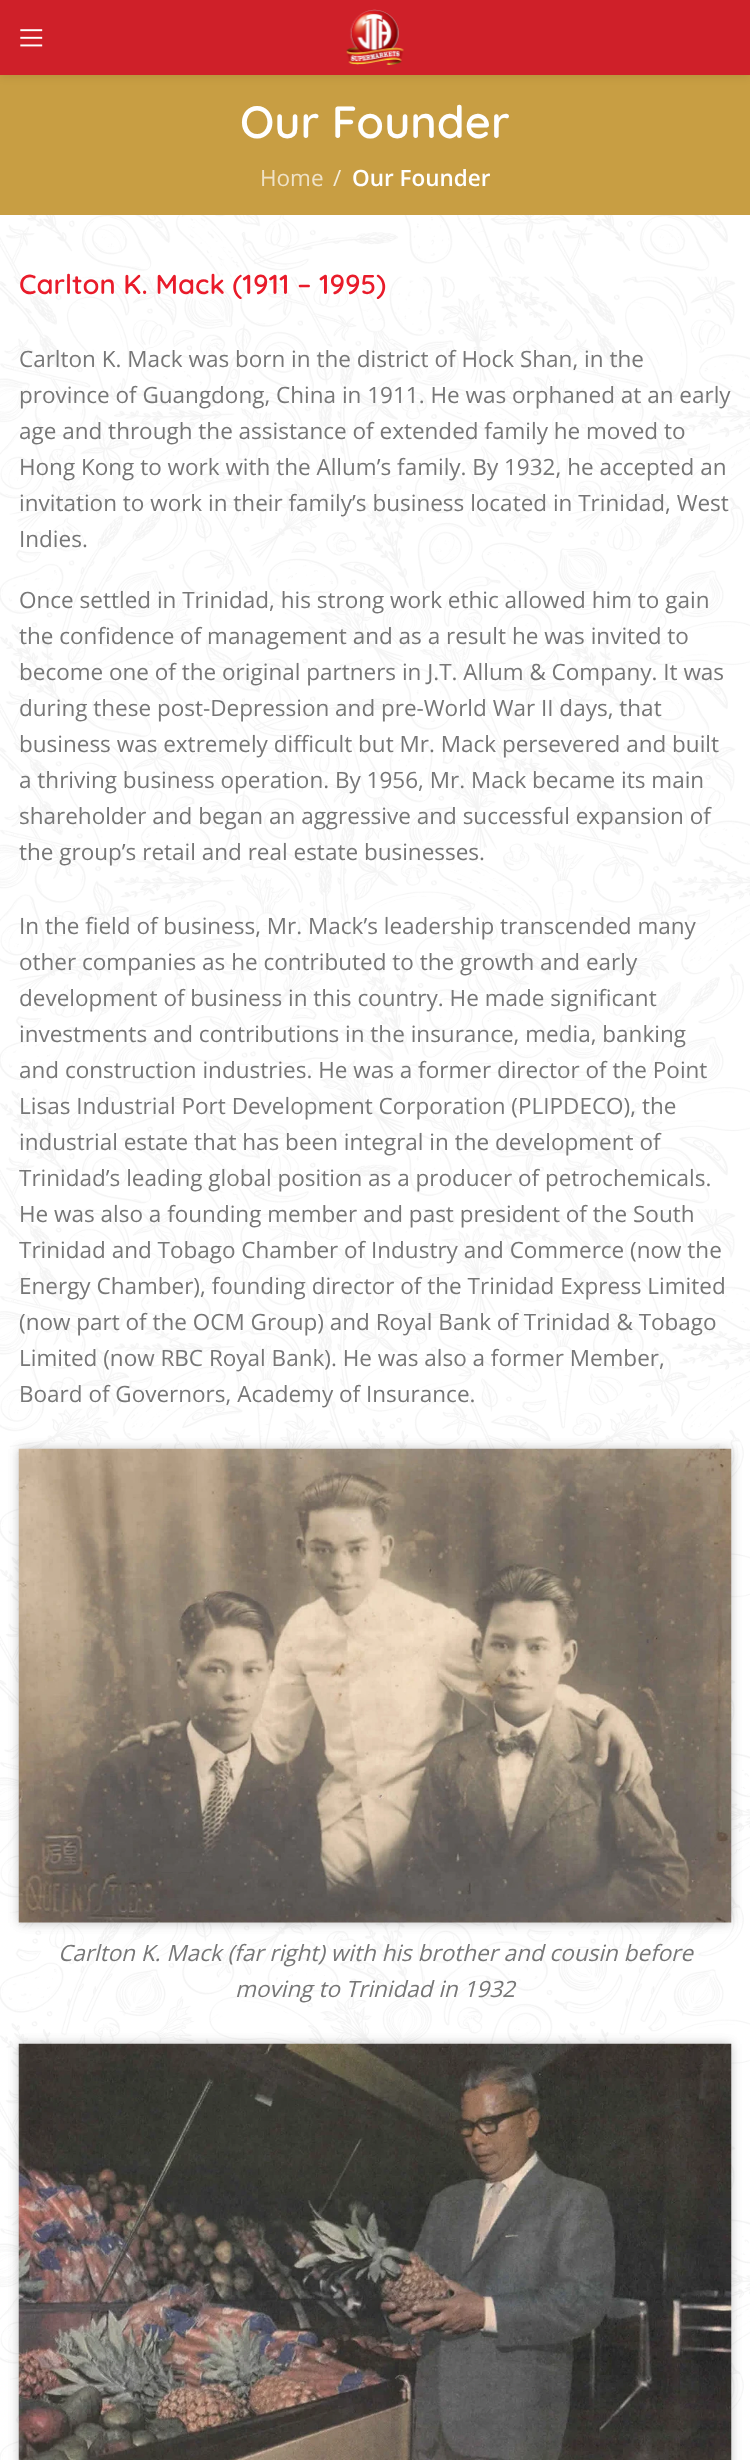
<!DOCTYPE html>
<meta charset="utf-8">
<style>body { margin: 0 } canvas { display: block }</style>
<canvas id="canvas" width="750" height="2460"></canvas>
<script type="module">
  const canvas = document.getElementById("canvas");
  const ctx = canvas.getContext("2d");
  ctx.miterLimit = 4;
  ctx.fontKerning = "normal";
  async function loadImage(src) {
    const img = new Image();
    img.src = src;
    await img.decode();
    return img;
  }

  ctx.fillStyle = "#ffffff";
  ctx.fillRect(0, 0, 750, 2460);
  ctx.fillStyle = "#c89e43";
  ctx.fillRect(0, 75, 750, 140);
  ctx.fillStyle = "rgba(0, 0, 0, 0.1)";
  ctx.filter = "blur(5px)";
  ctx.beginPath();
  ctx.rect(0, 1, 750, 75);
  ctx.fill();
  ctx.filter = "none";
  ctx.fillStyle = "#cf2029";
  ctx.fillRect(0, 0, 750, 75);
  ctx.drawImage(await loadImage("img1.png"), 20, 29, 23, 18);
  ctx.drawImage(await loadImage("img2.png"), 346, 9, 58, 56);
  ctx.drawImage(await loadImage("img3.png"), 0, 215, 750, 2245);
  ctx.font = "600 45px Quicksand";
  ctx.fillStyle = "#ffffff";
  ctx.fillText("Our Founder", 240, 138);
  ctx.font = "22.5px Open Sans";
  ctx.fillStyle = "#efe2c7";
  ctx.fillText("Home", 260, 186);
  ctx.fillStyle = "#f4ecd9";
  ctx.fillText("/", 333, 186);
  ctx.font = "600 22.5px Open Sans";
  ctx.fillStyle = "#ffffff";
  ctx.fillText("Our Founder", 352, 186);
  ctx.font = "600 27.5px Quicksand";
  ctx.fillStyle = "#e91b2a";
  ctx.fillText("Carlton K. Mack (1911 – 1995)", 19, 294);
  ctx.font = "22.5px Open Sans";
  ctx.fillStyle = "#777777";
  ctx.fillText("Carlton K. Mack was born in the district of Hock Shan, in the", 19, 367);
  ctx.fillText("province of Guangdong, China in 1911. He was orphaned at an early", 19, 403);
  ctx.fillText("age and through the assistance of extended family he moved to", 19, 439);
  ctx.fillText("Hong Kong to work with the Allum’s family. By 1932, he accepted an", 19, 475);
  ctx.fillText("invitation to work in their family’s business located in Trinidad, West", 19, 511);
  ctx.fillText("Indies.", 19, 547);
  ctx.fillText("Once settled in Trinidad, his strong work ethic allowed him to gain", 19, 608);
  ctx.fillText("the confidence of management and as a result he was invited to", 19, 644);
  ctx.fillText("become one of the original partners in J.T. Allum & Company. It was", 19, 680);
  ctx.fillText("during these post-Depression and pre-World War II days, that", 19, 716);
  ctx.fillText("business was extremely difficult but Mr. Mack persevered and built", 19, 752);
  ctx.fillText("a thriving business operation. By 1956, Mr. Mack became its main", 19, 788);
  ctx.fillText("shareholder and began an aggressive and successful expansion of", 19, 824);
  ctx.fillText("the group’s retail and real estate businesses.", 19, 860);
  ctx.fillText("In the field of business, Mr. Mack’s leadership transcended many", 19, 934);
  ctx.fillText("other companies as he contributed to the growth and early", 19, 970);
  ctx.fillText("development of business in this country. He made significant", 19, 1006);
  ctx.fillText("investments and contributions in the insurance, media, banking", 19, 1042);
  ctx.fillText("and construction industries. He was a former director of the Point", 19, 1078);
  ctx.fillText("Lisas Industrial Port Development Corporation (PLIPDECO), the", 19, 1114);
  ctx.fillText("industrial estate that has been integral in the development of", 19, 1150);
  ctx.fillText("Trinidad’s leading global position as a producer of petrochemicals.", 19, 1186);
  ctx.fillText("He was also a founding member and past president of the South", 19, 1222);
  ctx.fillText("Trinidad and Tobago Chamber of Industry and Commerce (now the", 19, 1258);
  ctx.fillText("Energy Chamber), founding director of the Trinidad Express Limited", 19, 1294);
  ctx.fillText("(now part of the OCM Group) and Royal Bank of Trinidad & Tobago", 19, 1330);
  ctx.fillText("Limited (now RBC Royal Bank). He was also a former Member,", 19, 1366);
  ctx.fillText("Board of Governors, Academy of Insurance.", 19, 1402);
  ctx.fillStyle = "rgba(0, 0, 0, 0.12)";
  ctx.filter = "blur(5.5px)";
  ctx.beginPath();
  ctx.rect(19, 1449, 712, 474);
  ctx.fill();
  ctx.filter = "none";
  ctx.filter = "blur(5.5px)";
  ctx.beginPath();
  ctx.rect(19, 1449, 712, 474);
  ctx.fill();
  ctx.filter = "none";
  ctx.drawImage(await loadImage("img4.png"), 18, 1448, 714, 475);
  ctx.font = "italic 22.5px Open Sans";
  ctx.fillStyle = "#777777";
  ctx.fillText("Carlton K. Mack (far right) with his brother and cousin before", 58, 1961);
  ctx.fillText("moving to Trinidad in 1932", 235, 1997);
  ctx.fillStyle = "rgba(0, 0, 0, 0.12)";
  ctx.filter = "blur(5.5px)";
  ctx.beginPath();
  ctx.rect(19, 2044, 712, 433);
  ctx.fill();
  ctx.filter = "none";
  ctx.filter = "blur(5.5px)";
  ctx.beginPath();
  ctx.rect(19, 2044, 712, 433);
  ctx.fill();
  ctx.filter = "none";
  ctx.drawImage(await loadImage("img5.png"), 18, 2043, 714, 417);
</script>
